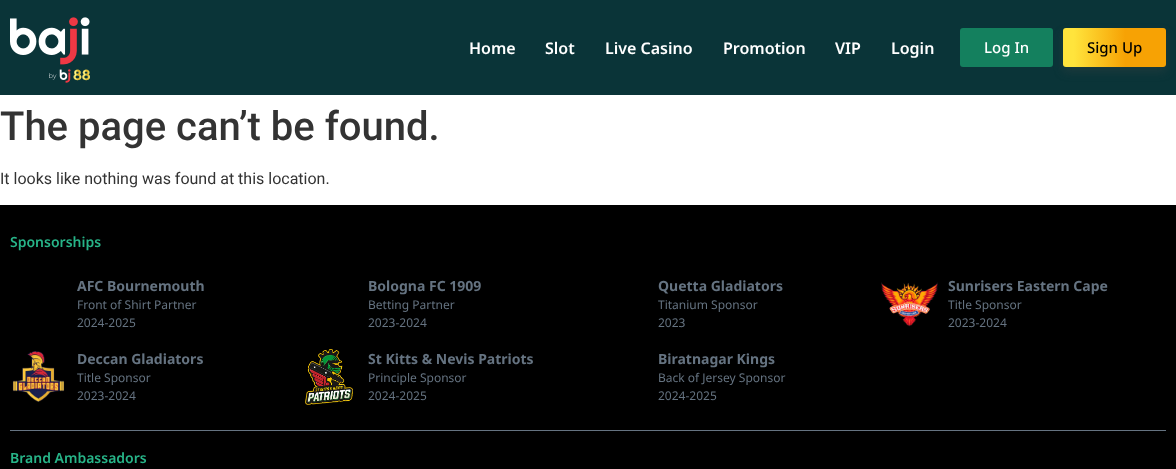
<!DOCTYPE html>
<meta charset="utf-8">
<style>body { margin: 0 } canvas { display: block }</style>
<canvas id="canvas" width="1176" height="469"></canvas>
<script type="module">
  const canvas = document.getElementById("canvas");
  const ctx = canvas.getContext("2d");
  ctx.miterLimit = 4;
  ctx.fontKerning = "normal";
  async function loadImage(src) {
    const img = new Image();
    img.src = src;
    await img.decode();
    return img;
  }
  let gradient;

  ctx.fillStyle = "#ffffff";
  ctx.fillRect(0, 0, 1176, 469);
  ctx.fillStyle = "#0a3438";
  ctx.fillRect(0, 0, 1176, 95);
  ctx.drawImage(await loadImage("img1.png"), 10, 17, 80, 66);
  ctx.font = "600 16px Noto Sans";
  ctx.fillStyle = "#ffffff";
  ctx.fillText("Home", 469, 54);
  ctx.fillText("Slot", 545, 54);
  ctx.fillText("Live Casino", 605, 54);
  ctx.fillText("Promotion", 723, 54);
  ctx.fillText("VIP", 835, 54);
  ctx.fillText("Login", 891, 54);
  ctx.fillStyle = "#14805e";
  ctx.beginPath();
  ctx.roundRect(960, 28, 93, 39, 3);
  ctx.fill();
  ctx.font = "500 15px Noto Sans";
  ctx.fillStyle = "#ffffff";
  ctx.fillText("Log In", 984, 53);
  ctx.fillStyle = "rgba(71, 71, 71, 0.3)";
  ctx.filter = "blur(5px)";
  ctx.beginPath();
  ctx.roundRect(1063, 33, 103, 39, 3);
  ctx.fill();
  ctx.filter = "none";
  gradient = ctx.createLinearGradient(1012, 48, 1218, 47);
  gradient.addColorStop(0, "#f7a204");
  gradient.addColorStop(0.15, "#ffe43c");
  gradient.addColorStop(0.3, "#ffe43c");
  gradient.addColorStop(0.55, "#f7a204");
  gradient.addColorStop(1, "#f7a204");
  ctx.fillStyle = gradient;
  ctx.beginPath();
  ctx.roundRect(1063, 28, 103, 39, 3);
  ctx.fill();
  ctx.fillStyle = "#000000";
  ctx.fillText("Sign Up", 1087, 53);
  ctx.font = "500 40px Roboto";
  ctx.fillStyle = "#333333";
  ctx.fillText("The page can’t be found.", 0, 140);
  ctx.font = "16px Roboto";
  ctx.fillText("It looks like nothing was found at this location.", 0, 184);
  ctx.fillStyle = "#000000";
  ctx.fillRect(0, 205, 1176, 264);
  ctx.fillStyle = "#657381";
  ctx.fillRect(10, 430, 1156, 1);
  ctx.font = "600 14px Noto Sans";
  ctx.fillStyle = "#27b488";
  ctx.fillText("Sponsorships", 10, 247);
  ctx.font = "bold 14px Noto Sans";
  ctx.fillStyle = "#657381";
  ctx.fillText("AFC Bournemouth", 77, 291);
  ctx.font = "12px Noto Sans";
  ctx.fillText("Front of Shirt Partner", 77, 309);
  ctx.fillText("2024-2025", 77, 327);
  ctx.font = "bold 14px Noto Sans";
  ctx.fillText("Bologna FC 1909", 368, 291);
  ctx.font = "12px Noto Sans";
  ctx.fillText("Betting Partner", 368, 309);
  ctx.fillText("2023-2024", 368, 327);
  ctx.font = "bold 14px Noto Sans";
  ctx.fillText("Quetta Gladiators", 658, 291);
  ctx.font = "12px Noto Sans";
  ctx.fillText("Titanium Sponsor", 658, 309);
  ctx.fillText("2023", 658, 327);
  ctx.drawImage(await loadImage("img2.png"), 881, 282, 57, 45);
  ctx.font = "bold 14px Noto Sans";
  ctx.fillText("Sunrisers Eastern Cape", 948, 291);
  ctx.font = "12px Noto Sans";
  ctx.fillText("Title Sponsor", 948, 309);
  ctx.fillText("2023-2024", 948, 327);
  ctx.drawImage(await loadImage("img3.png"), 12, 351, 53, 51);
  ctx.font = "bold 14px Noto Sans";
  ctx.fillText("Deccan Gladiators", 77, 364);
  ctx.font = "12px Noto Sans";
  ctx.fillText("Title Sponsor", 77, 382);
  ctx.fillText("2023-2024", 77, 400);
  ctx.drawImage(await loadImage("img4.png"), 305, 349, 48, 56);
  ctx.font = "bold 14px Noto Sans";
  ctx.fillText("St Kitts & Nevis Patriots", 368, 364);
  ctx.font = "12px Noto Sans";
  ctx.fillText("Principle Sponsor", 368, 382);
  ctx.fillText("2024-2025", 368, 400);
  ctx.font = "bold 14px Noto Sans";
  ctx.fillText("Biratnagar Kings", 658, 364);
  ctx.font = "12px Noto Sans";
  ctx.fillText("Back of Jersey Sponsor", 658, 382);
  ctx.fillText("2024-2025", 658, 400);
  ctx.font = "600 14px Noto Sans";
  ctx.fillStyle = "#27b488";
  ctx.fillText("Brand Ambassadors", 10, 463);
</script>
